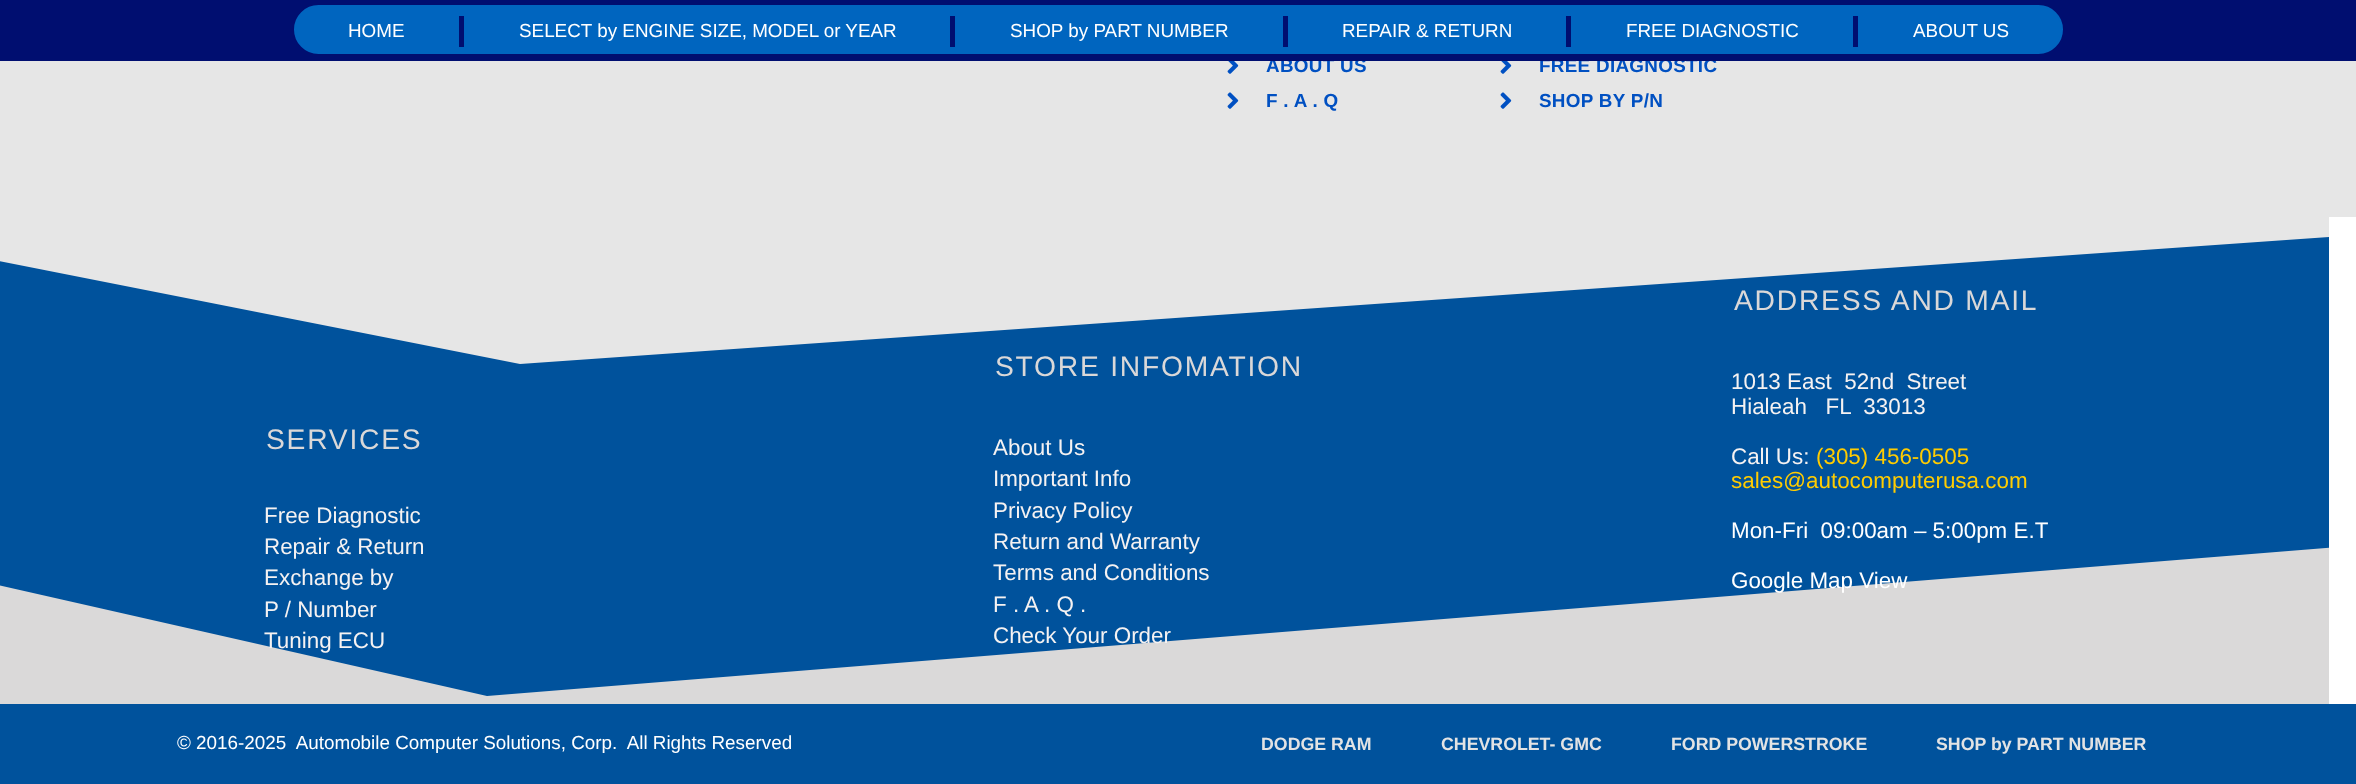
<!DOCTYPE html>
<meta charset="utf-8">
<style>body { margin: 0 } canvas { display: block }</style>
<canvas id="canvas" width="2356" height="784"></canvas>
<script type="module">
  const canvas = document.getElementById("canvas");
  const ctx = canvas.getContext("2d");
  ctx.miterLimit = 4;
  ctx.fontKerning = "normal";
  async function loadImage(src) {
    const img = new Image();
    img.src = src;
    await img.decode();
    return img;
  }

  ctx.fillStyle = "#ffffff";
  ctx.fillRect(0, 0, 2356, 784);
  ctx.fillStyle = "#e6e6e6";
  ctx.fillRect(0, 61, 2356, 156);
  ctx.letterSpacing = "0.3px";
  ctx.font = "bold 18.85px Liberation Sans";
  ctx.fillStyle = "#0050c2";
  ctx.fillText("ABOUT US", 1266, 72);
  ctx.fillText("FREE DIAGNOSTIC", 1539, 72);
  ctx.fillStyle = "#000e70";
  ctx.fillRect(0, 0, 2356, 61);
  ctx.fillStyle = "#0065bf";
  ctx.beginPath();
  ctx.roundRect(295, 6, 1767, 47, 23.5);
  ctx.fill();
  ctx.strokeStyle = "#0065bf";
  ctx.lineWidth = 2;
  ctx.stroke();
  ctx.letterSpacing = "0px";
  ctx.font = "18.85px Liberation Sans";
  ctx.fillStyle = "#ffffff";
  ctx.fillText("HOME", 348, 37);
  ctx.fillStyle = "#000e70";
  ctx.fillRect(459, 16, 5, 31);
  ctx.fillStyle = "#ffffff";
  ctx.fillText("SELECT by ENGINE SIZE, MODEL or YEAR", 519, 37);
  ctx.fillStyle = "#000e70";
  ctx.fillRect(950, 16, 5, 31);
  ctx.fillStyle = "#ffffff";
  ctx.fillText("SHOP by PART NUMBER", 1010, 37);
  ctx.fillStyle = "#000e70";
  ctx.fillRect(1283, 16, 5, 31);
  ctx.fillStyle = "#ffffff";
  ctx.fillText("REPAIR & RETURN", 1342, 37);
  ctx.fillStyle = "#000e70";
  ctx.fillRect(1566, 16, 5, 31);
  ctx.fillStyle = "#ffffff";
  ctx.fillText("FREE DIAGNOSTIC", 1626, 37);
  ctx.fillStyle = "#000e70";
  ctx.fillRect(1853, 16, 5, 31);
  ctx.fillStyle = "#ffffff";
  ctx.fillText("ABOUT US", 1913, 37);
  ctx.drawImage(await loadImage("img1.png"), 1227, 61, 12, 13);
  ctx.drawImage(await loadImage("img2.png"), 1227, 92, 12, 17);
  ctx.letterSpacing = "0.3px";
  ctx.font = "bold 18.85px Liberation Sans";
  ctx.fillStyle = "#0050c2";
  ctx.fillText("F . A . Q", 1266, 107);
  ctx.drawImage(await loadImage("img1.png"), 1500, 61, 12, 13);
  ctx.drawImage(await loadImage("img2.png"), 1500, 92, 12, 17);
  ctx.fillText("SHOP BY P/N", 1539, 107);
  ctx.fillStyle = "#00529c";
  ctx.fillRect(0, 237, 2329, 459);
  ctx.save();
  ctx.beginPath();
  ctx.rect(0, 215, 2329, 151);
  ctx.clip();
  ctx.fillStyle = "#e6e6e6";
  ctx.beginPath();
  ctx.moveTo(520, 364);
  ctx.lineTo(-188, 224);
  ctx.lineTo(-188, 215);
  ctx.lineTo(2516, 215);
  ctx.lineTo(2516, 224);
  ctx.closePath();
  ctx.fill();
  ctx.restore();
  ctx.letterSpacing = "1.75px";
  ctx.font = "28.25px Liberation Sans";
  ctx.fillStyle = "#dad8d8";
  ctx.fillText("SERVICES", 266, 449);
  ctx.letterSpacing = "0px";
  ctx.font = "22.4px Liberation Sans";
  ctx.fillStyle = "#f5f2f2";
  ctx.fillText("Free Diagnostic", 264, 523);
  ctx.save();
  ctx.beginPath();
  ctx.rect(0, 527, 2329, 178);
  ctx.clip();
  ctx.fillStyle = "#dad9d9";
  ctx.beginPath();
  ctx.moveTo(487, 696);
  ctx.lineTo(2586, 527);
  ctx.lineTo(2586, 705);
  ctx.lineTo(-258, 705);
  ctx.lineTo(-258, 527);
  ctx.closePath();
  ctx.fill();
  ctx.restore();
  ctx.fillText("Repair & Return", 264, 554);
  ctx.fillText("Exchange by", 264, 585);
  ctx.fillText("P / Number", 264, 617);
  ctx.fillText("Tuning ECU", 264, 648);
  ctx.letterSpacing = "1.75px";
  ctx.font = "28.25px Liberation Sans";
  ctx.fillStyle = "#dad8d8";
  ctx.fillText("STORE INFOMATION", 995, 376);
  ctx.letterSpacing = "0px";
  ctx.font = "22.4px Liberation Sans";
  ctx.fillStyle = "#f5f2f2";
  ctx.fillText("About Us", 993, 455);
  ctx.fillText("Important Info", 993, 486);
  ctx.fillText("Privacy Policy", 993, 518);
  ctx.fillText("Return and Warranty", 993, 549);
  ctx.fillText("Terms and Conditions", 993, 580);
  ctx.fillText("F . A . Q .", 993, 612);
  ctx.fillText("Check Your Order", 993, 643);
  ctx.letterSpacing = "1.75px";
  ctx.font = "28.25px Liberation Sans";
  ctx.fillStyle = "#dad8d8";
  ctx.fillText("ADDRESS AND MAIL", 1734, 310);
  ctx.letterSpacing = "0px";
  ctx.font = "22.4px Liberation Sans";
  ctx.fillStyle = "#f5f2f2";
  ctx.fillText("1013 East  52nd  Street", 1731, 389);
  ctx.fillText("Hialeah   FL  33013", 1731, 414);
  ctx.fillText("Call Us:", 1731, 464);
  ctx.fillStyle = "#ffcc00";
  ctx.fillText("(305) 456-0505", 1816, 464);
  ctx.fillText("sales@autocomputerusa.com", 1731, 488);
  ctx.fillStyle = "#ffffff";
  ctx.fillText("Mon-Fri  09:00am – 5:00pm E.T", 1731, 538);
  ctx.fillText("Google Map View", 1731, 588);
  ctx.fillStyle = "#00529c";
  ctx.fillRect(0, 704, 2356, 80);
  ctx.font = "18.85px Liberation Sans";
  ctx.fillStyle = "#ffffff";
  ctx.fillText("© 2016-2025  Automobile Computer Solutions, Corp.  All Rights Reserved", 177, 749);
  ctx.font = "bold 17.75px Liberation Sans";
  ctx.fillStyle = "#e2e3e4";
  ctx.fillText("DODGE RAM", 1261, 750);
  ctx.fillText("CHEVROLET- GMC", 1441, 750);
  ctx.fillText("FORD POWERSTROKE", 1671, 750);
  ctx.fillText("SHOP by PART NUMBER", 1936, 750);
</script>
